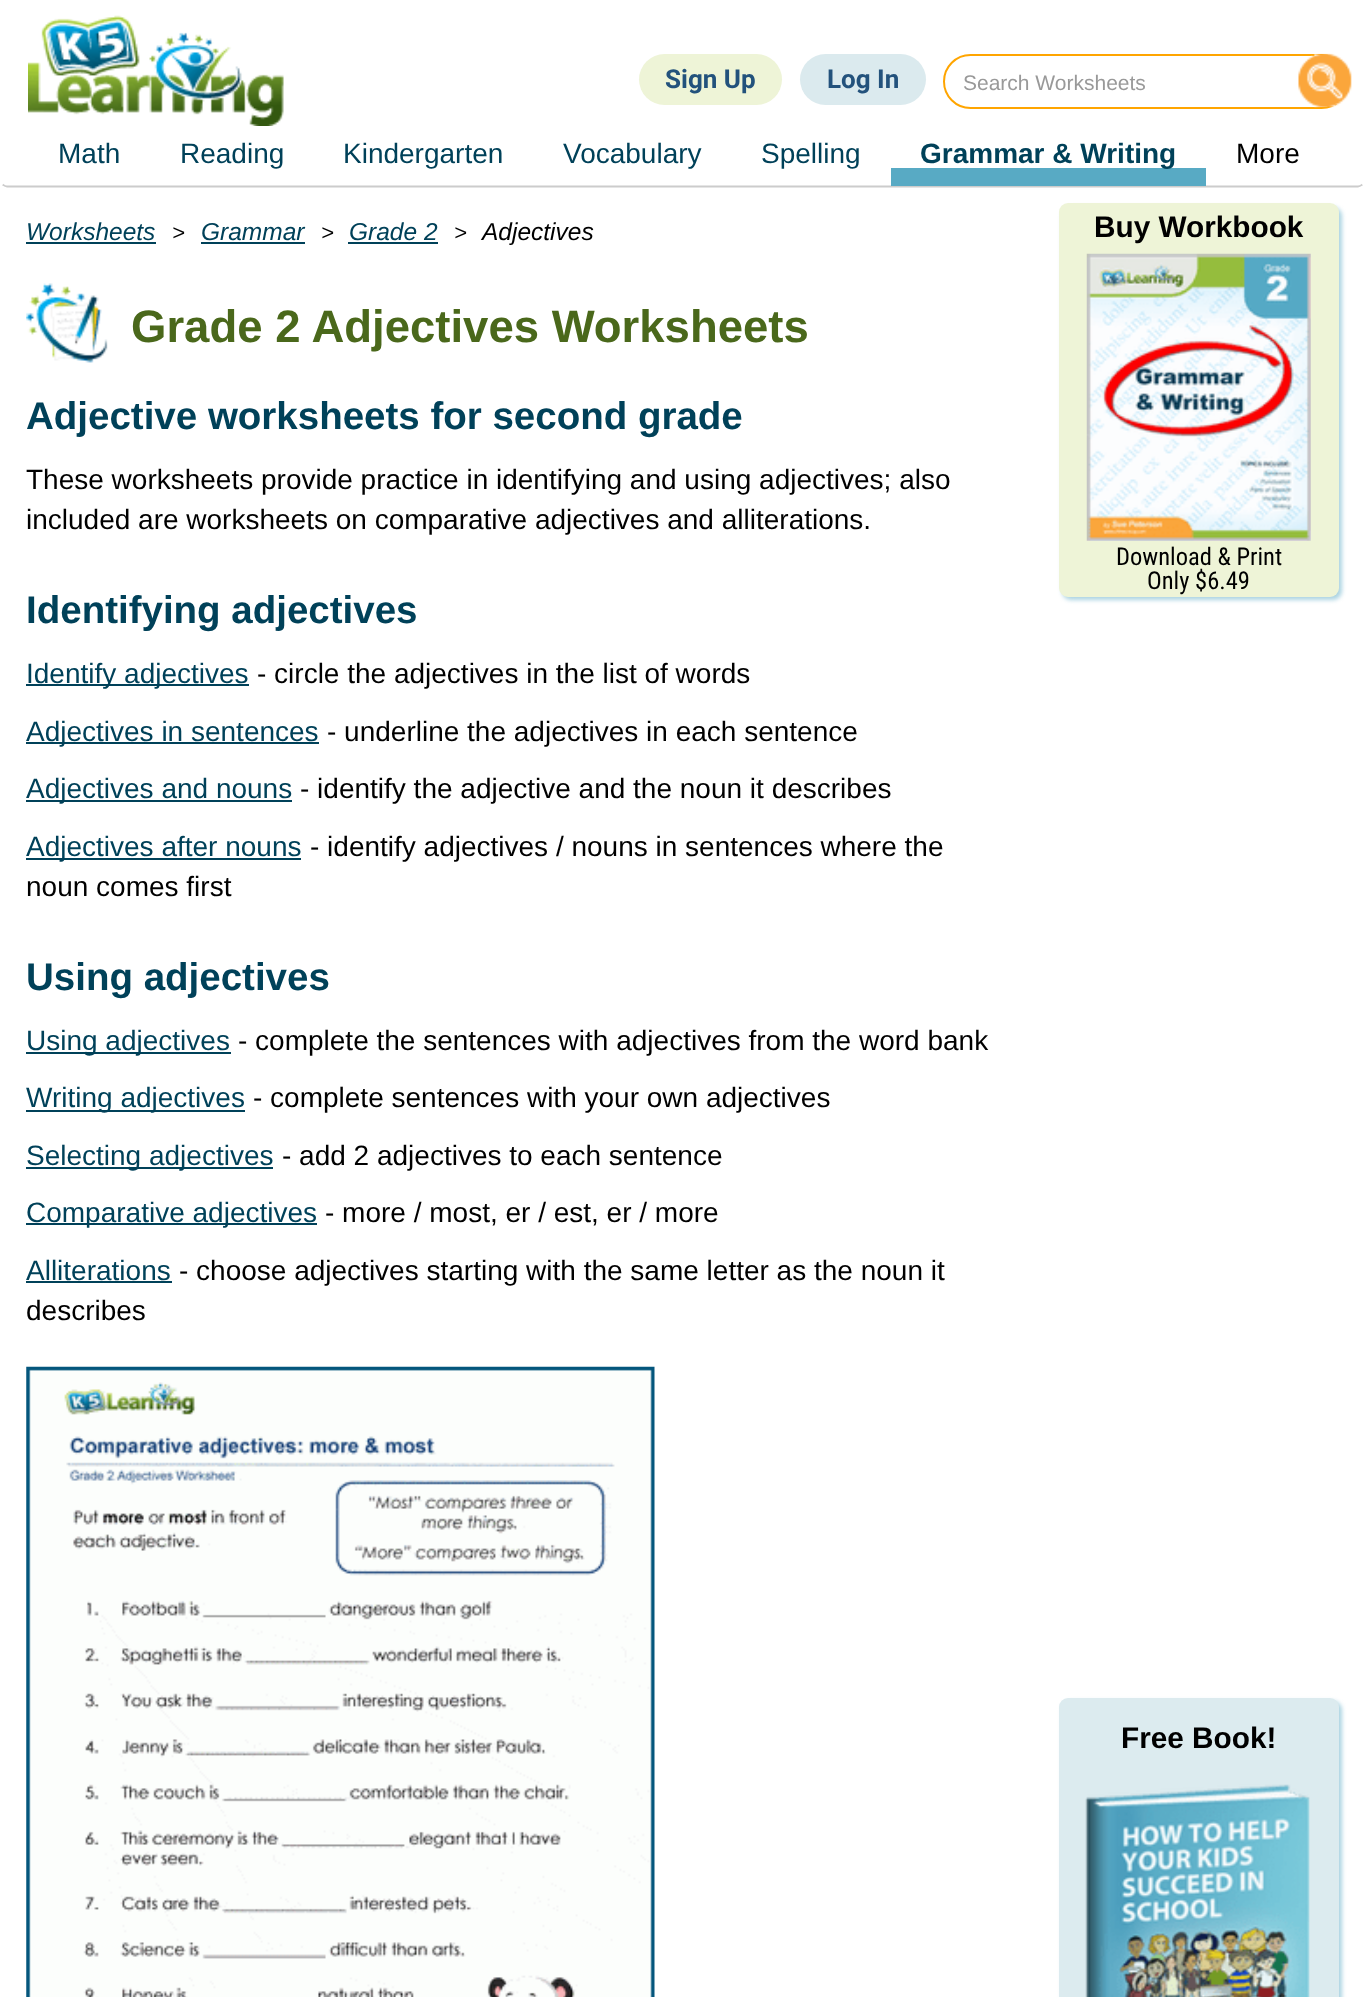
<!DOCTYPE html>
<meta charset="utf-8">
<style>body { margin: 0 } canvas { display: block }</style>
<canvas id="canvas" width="1365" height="1997"></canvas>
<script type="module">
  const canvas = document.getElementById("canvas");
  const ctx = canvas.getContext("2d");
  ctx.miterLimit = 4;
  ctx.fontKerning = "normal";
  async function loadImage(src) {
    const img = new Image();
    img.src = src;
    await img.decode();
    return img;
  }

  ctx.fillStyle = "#ffffff";
  ctx.fillRect(0, 0, 1365, 1997);
  ctx.beginPath();
  ctx.moveTo(1362.5, 184.5);
  ctx.bezierCurveTo(1361, 185.5, 1359.5, 186.5, 1358, 186.5);
  ctx.lineTo(7, 186.5);
  ctx.bezierCurveTo(5.5, 186.5, 4, 185.5, 2.5, 184.5);
  ctx.strokeStyle = "#cccccc";
  ctx.lineWidth = 1.8;
  ctx.stroke();
  ctx.beginPath();
  ctx.moveTo(2.5, 184.5);
  ctx.bezierCurveTo(1.5, 183.5, 1, 182, 1, 180);
  ctx.lineTo(1, 7);
  ctx.bezierCurveTo(1, 5.5, 1.5, 4, 2.5, 2.5);
  ctx.bezierCurveTo(4, 1.5, 5.5, 1, 7, 1);
  ctx.lineTo(1358, 1);
  ctx.bezierCurveTo(1359.5, 1, 1361, 1.5, 1362.5, 2.5);
  ctx.bezierCurveTo(1363.5, 4, 1364, 5.5, 1364, 7);
  ctx.lineTo(1364, 180);
  ctx.bezierCurveTo(1364, 182, 1363.5, 183.5, 1362.5, 184.5);
  ctx.strokeStyle = "#ffffff";
  ctx.stroke();
  ctx.drawImage(await loadImage("img1.png"), 28, 15, 256, 111);
  ctx.fillStyle = "#eef4d7";
  ctx.beginPath();
  ctx.roundRect(639, 54, 143, 51, 25.5);
  ctx.fill();
  ctx.font = "bold 26px Roboto";
  ctx.fillStyle = "#23527c";
  ctx.fillText("Sign Up", 665, 88);
  ctx.fillStyle = "#dbeaee";
  ctx.beginPath();
  ctx.roundRect(800, 54, 126, 51, 25.5);
  ctx.fill();
  ctx.fillStyle = "#23527c";
  ctx.fillText("Log In", 827, 88);
  ctx.beginPath();
  ctx.roundRect(944, 55, 404, 53, 26.5);
  ctx.strokeStyle = "#ffa500";
  ctx.lineWidth = 2;
  ctx.stroke();
  ctx.font = "21px Liberation Sans";
  ctx.fillStyle = "#999999";
  ctx.fillText("Search Worksheets", 963, 90);
  ctx.drawImage(await loadImage("img2.png"), 1298, 53, 54, 55);
  ctx.font = "28px Liberation Sans";
  ctx.fillStyle = "#004159";
  ctx.fillText("Math", 58, 163);
  ctx.fillText("Reading", 180, 163);
  ctx.fillText("Kindergarten", 343, 163);
  ctx.fillText("Vocabulary", 563, 163);
  ctx.fillText("Spelling", 761, 163);
  ctx.fillStyle = "#58aac4";
  ctx.fillRect(891, 168, 315, 18);
  ctx.font = "bold 28px Liberation Sans";
  ctx.fillStyle = "#004159";
  ctx.fillText("Grammar & Writing", 920, 163);
  ctx.font = "28px Liberation Sans";
  ctx.fillStyle = "#000000";
  ctx.fillText("More", 1236, 163);
  ctx.font = "italic 24.5px Liberation Sans";
  ctx.fillStyle = "#004159";
  ctx.fillText("Worksheets", 26, 240);
  ctx.fillRect(26, 242, 130, 2);
  ctx.font = "italic 22px Liberation Sans";
  ctx.fillStyle = "#000000";
  ctx.fillText(">", 172, 240);
  ctx.font = "italic 24.5px Liberation Sans";
  ctx.fillStyle = "#004159";
  ctx.fillText("Grammar", 201, 240);
  ctx.fillRect(201, 242, 104, 2);
  ctx.font = "italic 22px Liberation Sans";
  ctx.fillStyle = "#000000";
  ctx.fillText(">", 321, 240);
  ctx.font = "italic 24.5px Liberation Sans";
  ctx.fillStyle = "#004159";
  ctx.fillText("Grade 2", 349, 240);
  ctx.fillRect(348, 242, 90, 2);
  ctx.font = "italic 22px Liberation Sans";
  ctx.fillStyle = "#000000";
  ctx.fillText(">", 454, 240);
  ctx.font = "italic 24.5px Liberation Sans";
  ctx.fillText("Adjectives", 482, 240);
  ctx.drawImage(await loadImage("img3.png"), 26, 283, 82, 80);
  ctx.font = "bold 45.5px Liberation Sans";
  ctx.fillStyle = "#4a681b";
  ctx.fillText("Grade 2 Adjectives Worksheets", 131, 342);
  ctx.font = "bold 38.5px Liberation Sans";
  ctx.fillStyle = "#004159";
  ctx.fillText("Adjective worksheets for second grade", 26, 429);
  ctx.font = "28px Liberation Sans";
  ctx.fillStyle = "#000000";
  ctx.fillText("These worksheets provide practice in identifying and using adjectives; also", 26, 489);
  ctx.fillText("included are worksheets on comparative adjectives and alliterations.", 26, 529);
  ctx.font = "bold 38.5px Liberation Sans";
  ctx.fillStyle = "#004159";
  ctx.fillText("Identifying adjectives", 26, 623);
  ctx.fillRect(26, 684, 223, 2);
  ctx.font = "28px Liberation Sans";
  ctx.fillText("Identify adjectives", 26, 683);
  ctx.fillStyle = "#000000";
  ctx.fillText("- circle the adjectives in the list of words", 257, 683);
  ctx.fillStyle = "#004159";
  ctx.fillRect(26, 742, 293, 2);
  ctx.fillText("Adjectives in sentences", 26, 741);
  ctx.fillStyle = "#000000";
  ctx.fillText("- underline the adjectives in each sentence", 327, 741);
  ctx.fillStyle = "#004159";
  ctx.fillRect(26, 800, 266, 2);
  ctx.fillText("Adjectives and nouns", 26, 798);
  ctx.fillStyle = "#000000";
  ctx.fillText("- identify the adjective and the noun it describes", 300, 798);
  ctx.fillStyle = "#004159";
  ctx.fillRect(26, 858, 275, 2);
  ctx.fillText("Adjectives after nouns", 26, 856);
  ctx.fillStyle = "#000000";
  ctx.fillText("- identify adjectives / nouns in sentences where the", 310, 856);
  ctx.fillText("noun comes first", 26, 896);
  ctx.font = "bold 38.5px Liberation Sans";
  ctx.fillStyle = "#004159";
  ctx.fillText("Using adjectives", 26, 990);
  ctx.fillRect(26, 1052, 205, 2);
  ctx.font = "28px Liberation Sans";
  ctx.fillText("Using adjectives", 26, 1050);
  ctx.fillStyle = "#000000";
  ctx.fillText("- complete the sentences with adjectives from the word bank", 238, 1050);
  ctx.fillStyle = "#004159";
  ctx.fillRect(26, 1110, 219, 2);
  ctx.fillText("Writing adjectives", 26, 1107);
  ctx.fillStyle = "#000000";
  ctx.fillText("- complete sentences with your own adjectives", 253, 1107);
  ctx.fillStyle = "#004159";
  ctx.fillRect(26, 1167, 247, 2);
  ctx.fillText("Selecting adjectives", 26, 1165);
  ctx.fillStyle = "#000000";
  ctx.fillText("- add 2 adjectives to each sentence", 282, 1165);
  ctx.fillStyle = "#004159";
  ctx.fillRect(26, 1223, 291, 2);
  ctx.fillText("Comparative adjectives", 26, 1222);
  ctx.fillStyle = "#000000";
  ctx.fillText("- more / most, er / est, er / more", 325, 1222);
  ctx.fillStyle = "#004159";
  ctx.fillText("Alliterations", 26, 1280);
  ctx.fillRect(26, 1281, 146, 2);
  ctx.fillStyle = "#000000";
  ctx.fillText("- choose adjectives starting with the same letter as the noun it", 179, 1280);
  ctx.fillText("describes", 26, 1320);
  ctx.drawImage(await loadImage("img4.png"), 26, 1366, 629, 631);
  ctx.fillStyle = "rgba(89, 170, 197, 0.5)";
  ctx.filter = "blur(2px)";
  ctx.beginPath();
  ctx.roundRect(1062, 207, 280, 393, 9);
  ctx.fill();
  ctx.filter = "none";
  ctx.fillStyle = "#eef4d7";
  ctx.beginPath();
  ctx.roundRect(1059, 203, 280, 394, 9);
  ctx.fill();
  ctx.font = "bold 29.75px Liberation Sans";
  ctx.fillStyle = "#000000";
  ctx.fillText("Buy Workbook", 1094, 237);
  ctx.drawImage(await loadImage("img5.png"), 1086, 253, 225, 288);
  ctx.font = "24.5px Roboto Condensed";
  ctx.fillText("Download & Print", 1116, 565);
  ctx.fillText("Only $6.49", 1147, 589);
  ctx.fillStyle = "rgba(89, 170, 197, 0.5)";
  ctx.filter = "blur(2px)";
  ctx.beginPath();
  ctx.roundRect(1062, 1701, 280, 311, 9);
  ctx.fill();
  ctx.filter = "none";
  ctx.fillStyle = "#dcebef";
  ctx.beginPath();
  ctx.roundRect(1059, 1698, 280, 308, 9);
  ctx.fill();
  ctx.font = "bold 29.75px Liberation Sans";
  ctx.fillStyle = "#000000";
  ctx.fillText("Free Book!", 1121, 1748);
  ctx.drawImage(await loadImage("img6.png"), 1085, 1784, 225, 213);
</script>
